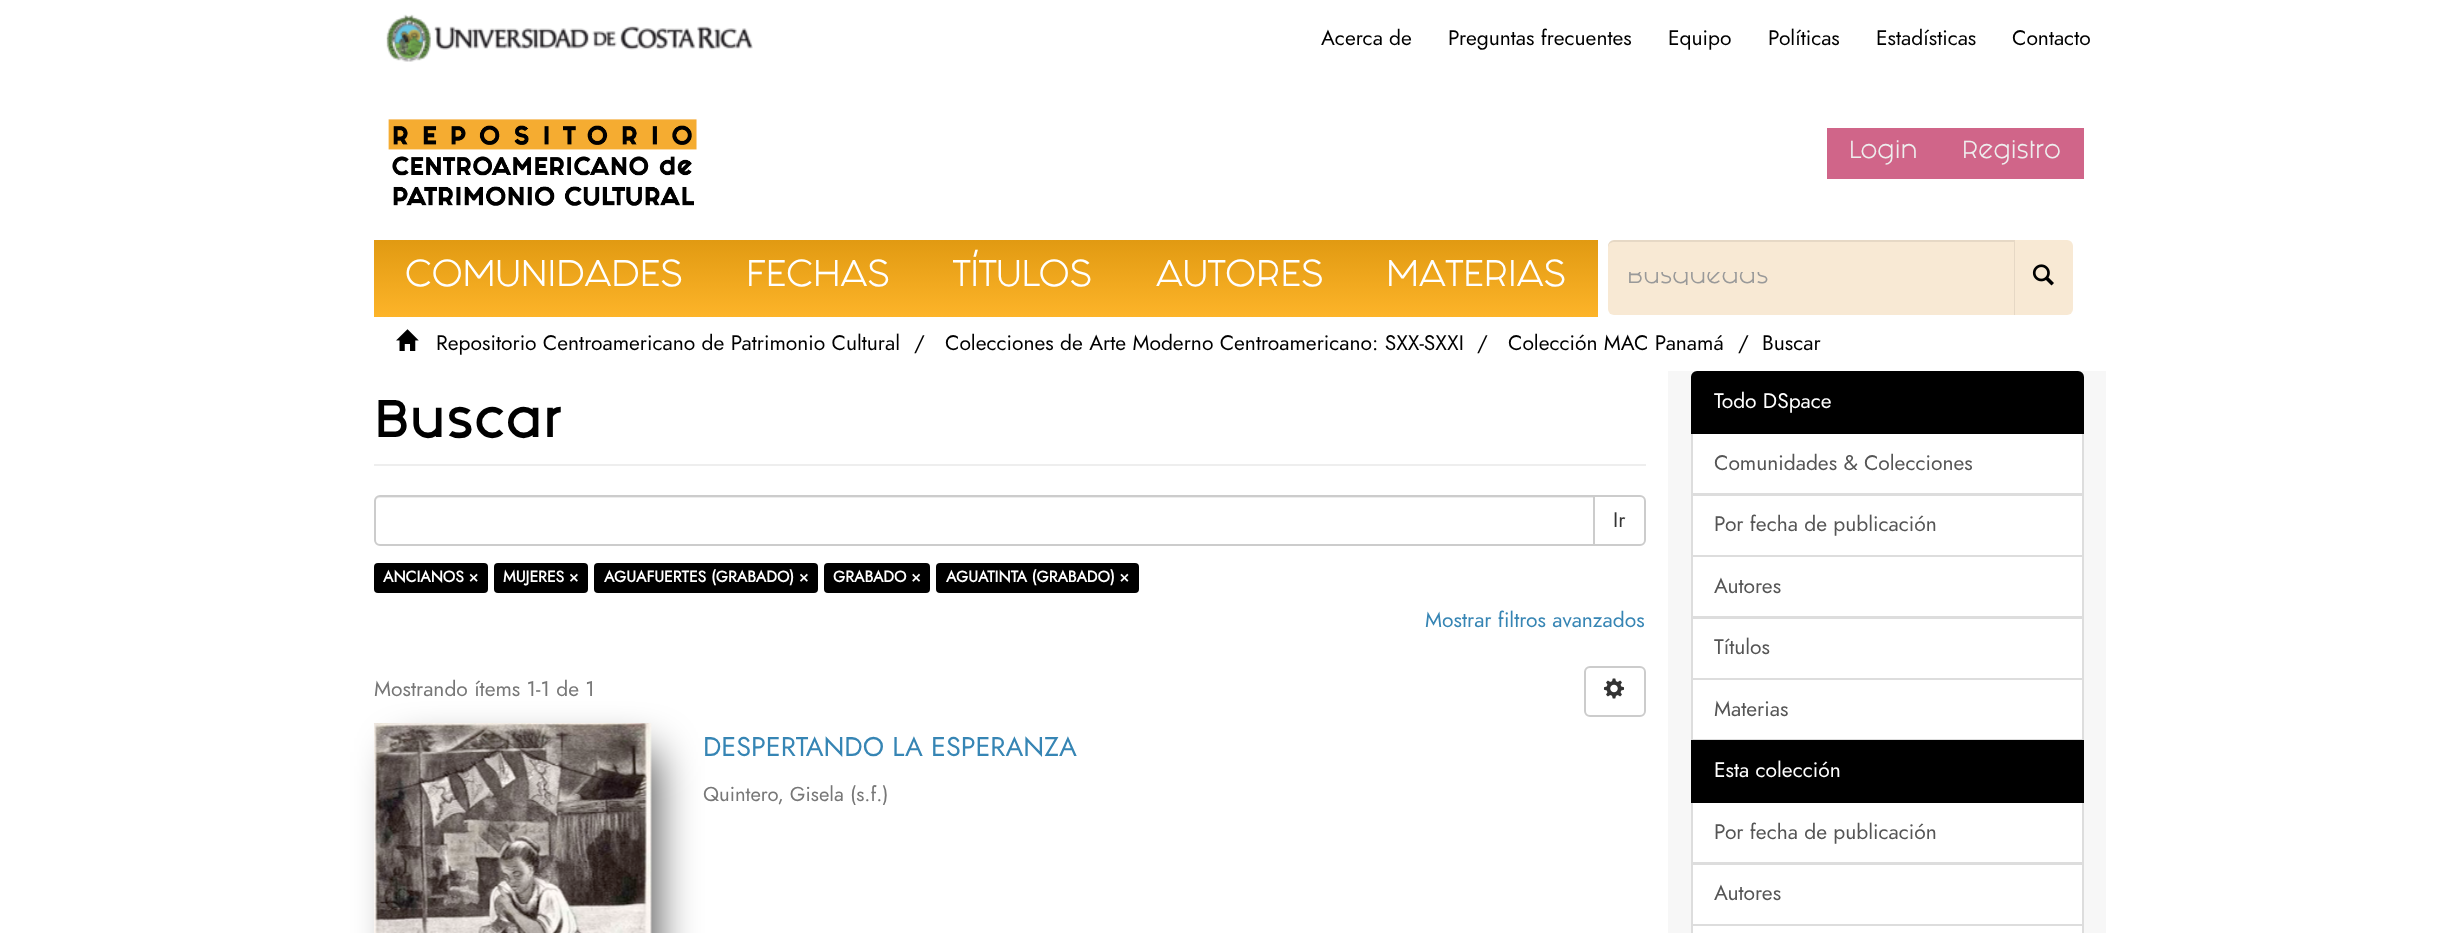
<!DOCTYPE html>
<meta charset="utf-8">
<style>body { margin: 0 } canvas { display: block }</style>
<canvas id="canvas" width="2456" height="933"></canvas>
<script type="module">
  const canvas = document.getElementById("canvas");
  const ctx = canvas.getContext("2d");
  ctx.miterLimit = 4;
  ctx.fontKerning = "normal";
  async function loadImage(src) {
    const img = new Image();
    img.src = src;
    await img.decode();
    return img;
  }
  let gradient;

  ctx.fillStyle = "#ffffff";
  ctx.fillRect(0, 0, 2456, 933);
  ctx.drawImage(await loadImage("img1.png"), 386, 14, 367, 48);
  ctx.font = "21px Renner";
  ctx.fillStyle = "#000000";
  ctx.fillText("Acerca de", 1321, 45);
  ctx.fillText("Preguntas frecuentes", 1448, 45);
  ctx.fillText("Equipo", 1668, 45);
  ctx.fillText("Políticas", 1768, 45);
  ctx.fillText("Estadísticas", 1876, 45);
  ctx.fillText("Contacto", 2012, 45);
  ctx.drawImage(await loadImage("img2.png"), 388, 119, 309, 87);
  ctx.fillStyle = "#d06589";
  ctx.fillRect(1827, 128, 257, 51);
  ctx.font = "21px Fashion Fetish";
  ctx.fillStyle = "#eeeeee";
  ctx.fillText("Login", 1849, 158);
  ctx.fillText("Registro", 1962, 158);
  gradient = ctx.createLinearGradient(544, 240, 544, 317);
  gradient.addColorStop(0, "#e19a12");
  gradient.addColorStop(1, "#fdb429");
  ctx.fillStyle = gradient;
  ctx.fillRect(374, 240, 340, 77);
  ctx.font = "31.5px Fashion Fetish";
  ctx.fillStyle = "#ffffff";
  ctx.fillText("COMUNIDADES", 405, 286);
  gradient = ctx.createLinearGradient(818, 240, 818, 317);
  gradient.addColorStop(0, "#e19a12");
  gradient.addColorStop(1, "#fdb429");
  ctx.fillStyle = gradient;
  ctx.fillRect(714, 240, 207, 77);
  ctx.fillStyle = "#ffffff";
  ctx.fillText("FECHAS", 746, 286);
  gradient = ctx.createLinearGradient(1022, 240, 1022, 317);
  gradient.addColorStop(0, "#e19a12");
  gradient.addColorStop(1, "#fdb429");
  ctx.fillStyle = gradient;
  ctx.fillRect(921, 240, 203, 77);
  ctx.fillStyle = "#ffffff";
  ctx.fillText("TÍTULOS", 953, 286);
  gradient = ctx.createLinearGradient(1239, 240, 1239, 317);
  gradient.addColorStop(0, "#e19a12");
  gradient.addColorStop(1, "#fdb429");
  ctx.fillStyle = gradient;
  ctx.fillRect(1124, 240, 231, 77);
  ctx.fillStyle = "#ffffff";
  ctx.fillText("AUTORES", 1156, 286);
  gradient = ctx.createLinearGradient(1476, 240, 1476, 317);
  gradient.addColorStop(0, "#e19a12");
  gradient.addColorStop(1, "#fdb429");
  ctx.fillStyle = gradient;
  ctx.fillRect(1355, 240, 243, 77);
  ctx.fillStyle = "#ffffff";
  ctx.fillText("MATERIAS", 1386, 286);
  ctx.fillStyle = "#f8e9d4";
  ctx.beginPath();
  ctx.roundRect(2013, 240, 60, 75, [0, 6, 6, 0]);
  ctx.fill();
  ctx.beginPath();
  ctx.roundRect(1608, 240, 407, 75, [6, 0, 0, 6]);
  ctx.fill();
  ctx.fillStyle = "rgba(0, 0, 0, 0.07)";
  ctx.beginPath();
  ctx.moveTo(1614, 242);
  ctx.lineTo(2014, 242);
  ctx.lineTo(2014, 315);
  ctx.lineTo(2015, 315);
  ctx.lineTo(2015, 240);
  ctx.lineTo(1614, 240);
  ctx.bezierCurveTo(1611, 240, 1608, 243, 1608, 246);
  ctx.lineTo(1608, 248);
  ctx.bezierCurveTo(1608, 244, 1611, 242, 1614, 242);
  ctx.closePath();
  ctx.fill();
  ctx.save();
  ctx.beginPath();
  ctx.rect(1626, 272, 371, 13);
  ctx.clip();
  ctx.font = "21px Fashion Fetish";
  ctx.fillStyle = "#999999";
  ctx.fillText("Búsquedas", 1627, 283);
  ctx.restore();
  ctx.drawImage(await loadImage("img3.png"), 2032, 264, 22, 22);
  ctx.drawImage(await loadImage("img4.png"), 396, 329, 23, 22);
  ctx.font = "21px Renner";
  ctx.fillStyle = "#000000";
  ctx.fillText("Repositorio Centroamericano de Patrimonio Cultural", 436, 350);
  ctx.fillText("/", 914, 350);
  ctx.fillText("Colecciones de Arte Moderno Centroamericano: SXX-SXXI", 945, 350);
  ctx.fillText("/", 1477, 350);
  ctx.fillText("Colección MAC Panamá", 1508, 350);
  ctx.fillText("/", 1738, 350);
  ctx.fillText("Buscar", 1762, 350);
  ctx.fillStyle = "#f7f7f7";
  ctx.fillRect(1668, 371, 438, 562);
  ctx.fillStyle = "#eeeeee";
  ctx.fillRect(374, 464, 1272, 2);
  ctx.font = "bold 45px Fashion Fetish";
  ctx.fillStyle = "#000000";
  ctx.fillText("Buscar", 374, 437);
  ctx.beginPath();
  ctx.roundRect(1594, 496, 51, 49, [0, 5, 5, 0]);
  ctx.strokeStyle = "#cccccc";
  ctx.lineWidth = 2;
  ctx.stroke();
  ctx.fillStyle = "#ffffff";
  ctx.beginPath();
  ctx.roundRect(374, 495, 1221, 51, [6, 0, 0, 6]);
  ctx.fill();
  ctx.fillStyle = "#ececec";
  ctx.beginPath();
  ctx.moveTo(380, 498);
  ctx.lineTo(1593, 498);
  ctx.lineTo(1593, 497);
  ctx.lineTo(380, 497);
  ctx.bezierCurveTo(377, 497, 375, 499, 375, 502);
  ctx.bezierCurveTo(375, 500, 377, 498, 380, 498);
  ctx.closePath();
  ctx.fill();
  ctx.beginPath();
  ctx.roundRect(375, 496, 1219, 49, [5, 0, 0, 5]);
  ctx.stroke();
  ctx.font = "21px Renner";
  ctx.fillStyle = "#333333";
  ctx.fillText("Ir", 1613, 527);
  ctx.fillStyle = "#000000";
  ctx.beginPath();
  ctx.roundRect(374, 563, 114, 30, 4);
  ctx.fill();
  ctx.font = "bold 15.75px Renner";
  ctx.fillStyle = "#ffffff";
  ctx.fillText("ANCIANOS ×", 383, 582);
  ctx.fillStyle = "#000000";
  ctx.beginPath();
  ctx.roundRect(494, 563, 94, 30, 4);
  ctx.fill();
  ctx.fillStyle = "#ffffff";
  ctx.fillText("MUJERES ×", 503, 582);
  ctx.fillStyle = "#000000";
  ctx.beginPath();
  ctx.roundRect(594, 563, 224, 30, 4);
  ctx.fill();
  ctx.fillStyle = "#ffffff";
  ctx.fillText("AGUAFUERTES (GRABADO) ×", 604, 582);
  ctx.fillStyle = "#000000";
  ctx.beginPath();
  ctx.roundRect(824, 563, 106, 30, 4);
  ctx.fill();
  ctx.fillStyle = "#ffffff";
  ctx.fillText("GRABADO ×", 833, 582);
  ctx.fillStyle = "#000000";
  ctx.beginPath();
  ctx.roundRect(936, 563, 203, 30, 4);
  ctx.fill();
  ctx.fillStyle = "#ffffff";
  ctx.fillText("AGUATINTA (GRABADO) ×", 946, 582);
  ctx.font = "21px Renner";
  ctx.fillStyle = "#3685b4";
  ctx.fillText("Mostrar filtros avanzados", 1425, 627);
  ctx.fillStyle = "#777777";
  ctx.fillText("Mostrando ítems 1-1 de 1", 374, 696);
  ctx.beginPath();
  ctx.roundRect(1585, 667, 60, 49, 5);
  ctx.stroke();
  ctx.drawImage(await loadImage("img5.png"), 1603, 678, 22, 21);
  ctx.fillStyle = "rgba(0, 0, 0, 0.75)";
  ctx.filter = "blur(22px)";
  ctx.beginPath();
  ctx.rect(401, 752, 253, 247);
  ctx.fill();
  ctx.filter = "none";
  ctx.drawImage(await loadImage("img6.png"), 374, 723, 278, 210);
  ctx.font = "27px Renner";
  ctx.fillStyle = "#3685b4";
  ctx.fillText("DESPERTANDO LA ESPERANZA", 703, 756);
  ctx.font = "20.25px Renner";
  ctx.fillStyle = "#777777";
  ctx.fillText("Quintero, Gisela (s.f.)", 703, 801);
  ctx.fillStyle = "#ffffff";
  ctx.beginPath();
  ctx.rect(1692, 433, 391, 61);
  ctx.fill();
  ctx.strokeStyle = "#dddddd";
  ctx.stroke();
  ctx.fillStyle = "#000000";
  ctx.beginPath();
  ctx.roundRect(1692, 372, 391, 61, [5, 5, 0, 0]);
  ctx.fill();
  ctx.strokeStyle = "#000000";
  ctx.stroke();
  ctx.font = "21px Renner";
  ctx.fillStyle = "#ffffff";
  ctx.fillText("Todo DSpace", 1714, 408);
  ctx.fillStyle = "#555555";
  ctx.fillText("Comunidades & Colecciones", 1714, 470);
  ctx.fillStyle = "#ffffff";
  ctx.beginPath();
  ctx.rect(1692, 495, 391, 61);
  ctx.fill();
  ctx.strokeStyle = "#dddddd";
  ctx.stroke();
  ctx.fillStyle = "#555555";
  ctx.fillText("Por fecha de publicación", 1714, 531);
  ctx.fillStyle = "#ffffff";
  ctx.beginPath();
  ctx.rect(1692, 556, 391, 61);
  ctx.fill();
  ctx.stroke();
  ctx.fillStyle = "#555555";
  ctx.fillText("Autores", 1714, 593);
  ctx.fillStyle = "#ffffff";
  ctx.beginPath();
  ctx.rect(1692, 618, 391, 61);
  ctx.fill();
  ctx.stroke();
  ctx.fillStyle = "#555555";
  ctx.fillText("Títulos", 1714, 654);
  ctx.fillStyle = "#ffffff";
  ctx.beginPath();
  ctx.rect(1692, 679, 391, 61);
  ctx.fill();
  ctx.stroke();
  ctx.fillStyle = "#555555";
  ctx.fillText("Materias", 1714, 716);
  ctx.fillStyle = "#ffffff";
  ctx.beginPath();
  ctx.rect(1692, 802, 391, 61);
  ctx.fill();
  ctx.stroke();
  ctx.fillStyle = "#000000";
  ctx.fillRect(1691, 740, 393, 63);
  ctx.fillStyle = "#ffffff";
  ctx.fillText("Esta colección", 1714, 777);
  ctx.fillStyle = "#555555";
  ctx.fillText("Por fecha de publicación", 1714, 839);
  ctx.fillStyle = "#ffffff";
  ctx.beginPath();
  ctx.rect(1692, 864, 391, 61);
  ctx.fill();
  ctx.stroke();
  ctx.fillStyle = "#555555";
  ctx.fillText("Autores", 1714, 900);
  ctx.fillStyle = "#ffffff";
  ctx.beginPath();
  ctx.rect(1692, 925, 391, 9);
  ctx.fill();
  ctx.stroke();
</script>
